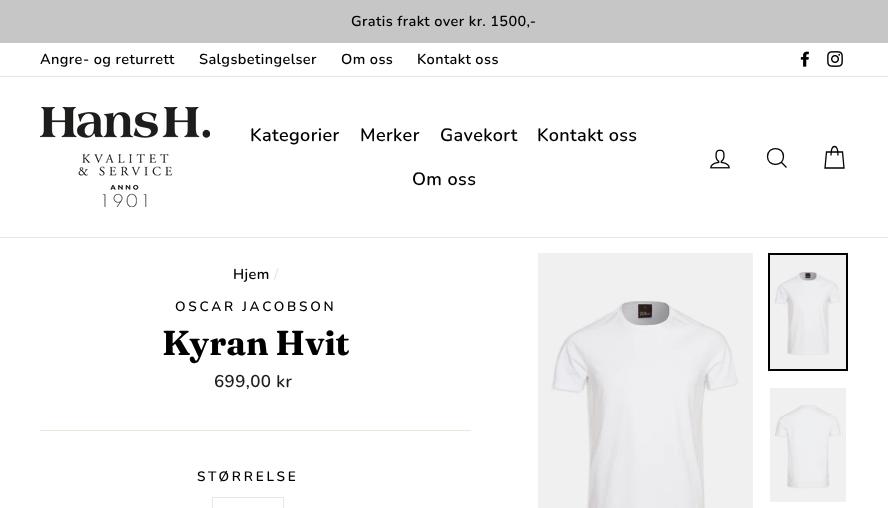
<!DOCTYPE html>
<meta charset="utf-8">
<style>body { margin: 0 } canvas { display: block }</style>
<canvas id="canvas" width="888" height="508"></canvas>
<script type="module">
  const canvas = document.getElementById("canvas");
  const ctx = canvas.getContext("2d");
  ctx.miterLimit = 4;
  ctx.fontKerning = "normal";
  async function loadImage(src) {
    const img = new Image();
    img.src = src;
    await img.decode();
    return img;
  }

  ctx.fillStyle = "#ffffff";
  ctx.fillRect(0, 0, 888, 508);
  ctx.fillStyle = "#c6c6c7";
  ctx.fillRect(0, 0, 888, 43);
  ctx.letterSpacing = "0.4px";
  ctx.font = "600 14.5px Nunito";
  ctx.fillStyle = "#000000";
  ctx.fillText("Gratis frakt over kr. 1500,-", 351, 26);
  ctx.fillText("Angre- og returrett", 40, 64);
  ctx.fillText("Salgsbetingelser", 199, 64);
  ctx.fillText("Om oss", 341, 64);
  ctx.fillText("Kontakt oss", 417, 64);
  ctx.drawImage(await loadImage("img1.png"), 800, 51, 9, 16);
  ctx.drawImage(await loadImage("img2.png"), 827, 51, 16, 16);
  ctx.fillStyle = "#e6e6e6";
  ctx.fillRect(0, 76, 888, 1);
  ctx.fillStyle = "#e8e8e1";
  ctx.fillRect(0, 237, 888, 1);
  ctx.drawImage(await loadImage("img3.png"), 40, 107, 170, 100);
  ctx.font = "600 18px Nunito";
  ctx.fillStyle = "#000000";
  ctx.fillText("Kategorier", 250, 141);
  ctx.fillText("Merker", 360, 141);
  ctx.fillText("Gavekort", 440, 141);
  ctx.fillText("Kontakt oss", 537, 141);
  ctx.fillText("Om oss", 412, 185);
  ctx.drawImage(await loadImage("img4.png"), 710, 149, 20, 20);
  ctx.beginPath();
  ctx.moveTo(783.5, 156.5);
  ctx.bezierCurveTo(783.5, 167, 767.5, 167, 767.5, 156.5);
  ctx.bezierCurveTo(767.5, 146, 783.5, 146, 783.5, 156.5);
  ctx.closePath();
  ctx.moveTo(786.5, 167.5);
  ctx.lineTo(781.5, 162.5);
  ctx.strokeStyle = "#000000";
  ctx.lineWidth = 1.3;
  ctx.stroke();
  ctx.beginPath();
  ctx.moveTo(831, 155.5);
  ctx.bezierCurveTo(831, 143.5, 838, 143.5, 838, 155.5);
  ctx.moveTo(826.5, 152);
  ctx.lineTo(842.5, 152);
  ctx.lineTo(844, 168);
  ctx.lineTo(825, 168);
  ctx.closePath();
  ctx.stroke();
  ctx.font = "600 14.5px Nunito";
  ctx.fillText("Hjem", 233, 279);
  ctx.fillStyle = "#e8e8e1";
  ctx.fillText("/", 274, 279);
  ctx.letterSpacing = "2.75px";
  ctx.font = "600 13.6px Nunito";
  ctx.fillStyle = "#000000";
  ctx.fillText("OSCAR JACOBSON", 175, 311);
  ctx.letterSpacing = "0px";
  ctx.font = "bold 34.5px Fraunces";
  ctx.fillText("Kyran Hvit", 162, 355);
  ctx.letterSpacing = "0.4px";
  ctx.font = "600 17px Nunito";
  ctx.fillStyle = "#1c1d1d";
  ctx.fillText("699,00 kr", 214, 387);
  ctx.fillStyle = "#e8e8e1";
  ctx.fillRect(40, 430, 431, 1);
  ctx.letterSpacing = "2.75px";
  ctx.font = "600 13.6px Nunito";
  ctx.fillStyle = "#000000";
  ctx.fillText("STØRRELSE", 197, 481);
  ctx.strokeStyle = "#e8e8e1";
  ctx.lineWidth = 1;
  ctx.strokeRect(212.5, 497.5, 71, 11);
  ctx.drawImage(await loadImage("img5.png"), 538, 253, 215, 255);
  ctx.strokeStyle = "#000000";
  ctx.lineWidth = 2;
  ctx.strokeRect(769, 254, 78, 116);
  ctx.drawImage(await loadImage("img6.png"), 770, 255, 76, 114);
  ctx.drawImage(await loadImage("img7.png"), 770, 388, 76, 114);
</script>
